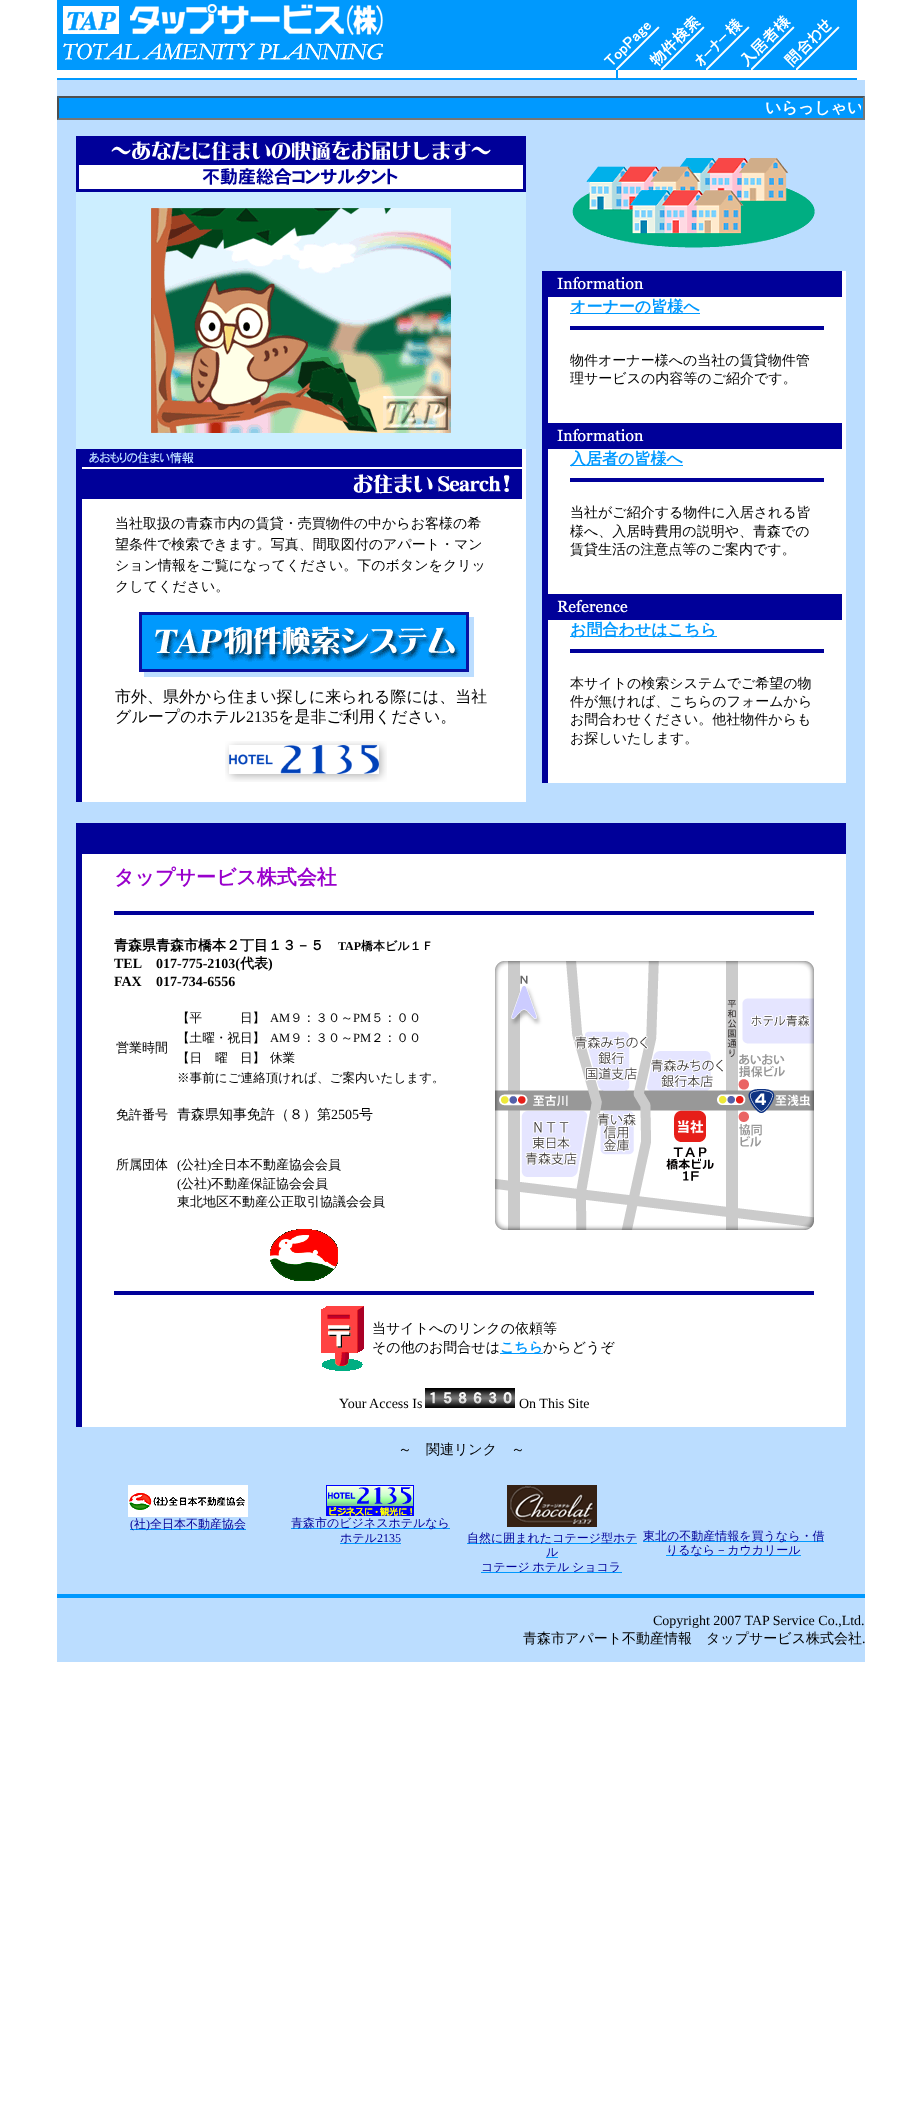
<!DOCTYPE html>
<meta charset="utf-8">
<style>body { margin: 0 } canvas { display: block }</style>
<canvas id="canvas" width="922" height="2121"></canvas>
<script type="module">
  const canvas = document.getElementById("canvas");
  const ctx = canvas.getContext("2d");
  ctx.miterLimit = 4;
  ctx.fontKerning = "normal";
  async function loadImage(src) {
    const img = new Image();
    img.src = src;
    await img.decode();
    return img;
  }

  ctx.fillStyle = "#ffffff";
  ctx.fillRect(0, 0, 922, 2121);
  ctx.drawImage(await loadImage("img1.png"), 57, 0, 800, 70);
  ctx.drawImage(await loadImage("img2.png"), 57, 70, 800, 10);
  ctx.fillStyle = "#bbddff";
  ctx.fillRect(57, 80, 808, 1582);
  ctx.fillStyle = "#0099ff";
  ctx.fillRect(57, 96, 808, 24);
  ctx.fillStyle = "#4f4f4f";
  ctx.beginPath();
  ctx.moveTo(57, 96);
  ctx.lineTo(865, 96);
  ctx.lineTo(863, 98);
  ctx.lineTo(59, 98);
  ctx.closePath();
  ctx.fill();
  ctx.fillStyle = "#767676";
  ctx.beginPath();
  ctx.moveTo(865, 96);
  ctx.lineTo(865, 120);
  ctx.lineTo(863, 118);
  ctx.lineTo(863, 98);
  ctx.closePath();
  ctx.fill();
  ctx.beginPath();
  ctx.moveTo(865, 120);
  ctx.lineTo(57, 120);
  ctx.lineTo(59, 118);
  ctx.lineTo(863, 118);
  ctx.closePath();
  ctx.fill();
  ctx.fillStyle = "#4f4f4f";
  ctx.beginPath();
  ctx.moveTo(57, 120);
  ctx.lineTo(57, 96);
  ctx.lineTo(59, 98);
  ctx.lineTo(59, 118);
  ctx.closePath();
  ctx.fill();
  ctx.save();
  ctx.beginPath();
  ctx.rect(61, 98, 800, 20);
  ctx.clip();
  ctx.font = "bold 16px WenQuanYi Zen Hei";
  ctx.fillStyle = "#ffffff";
  ctx.fillText("いらっしゃい", 765, 113);
  ctx.restore();
  ctx.fillStyle = "#cceeff";
  ctx.fillRect(76, 192, 450, 257);
  ctx.drawImage(await loadImage("img3.png"), 76, 136, 450, 56);
  ctx.drawImage(await loadImage("img4.png"), 151, 208, 300, 225);
  ctx.fillStyle = "#000099";
  ctx.fillRect(76, 449, 6, 353);
  ctx.fillStyle = "#ffffff";
  ctx.fillRect(82, 449, 444, 353);
  ctx.drawImage(await loadImage("img5.png"), 82, 449, 440, 50);
  ctx.font = "500 14px WenQuanYi Zen Hei";
  ctx.fillStyle = "#000000";
  ctx.fillText("当社取扱の青森市内の賃貸・売買物件の中からお客様の希", 115, 528);
  ctx.fillText("望条件で検索できます。写真、間取図付のアパート・マン", 115, 549);
  ctx.fillText("ション情報をご覧になってください。下のボタンをクリッ", 115, 570);
  ctx.fillText("クしてください。", 115, 591);
  ctx.drawImage(await loadImage("img6.png"), 139, 612, 335, 65);
  ctx.font = "500 16px WenQuanYi Zen Hei";
  ctx.fillText("市外、県外から住まい探しに来られる際には、当社", 115, 702);
  ctx.fillText("グループのホテル", 115, 722);
  ctx.font = "16px Liberation Serif";
  ctx.fillText("2135", 246, 722);
  ctx.font = "500 16px WenQuanYi Zen Hei";
  ctx.fillText("を是非ご利用ください。", 278, 722);
  ctx.drawImage(await loadImage("img7.png"), 225, 741, 162, 41);
  ctx.drawImage(await loadImage("img8.png"), 572, 158, 243, 90);
  ctx.fillStyle = "#000099";
  ctx.fillRect(542, 271, 6, 512);
  ctx.fillStyle = "#ffffff";
  ctx.fillRect(548, 271, 298, 512);
  ctx.drawImage(await loadImage("img9.png"), 548, 271, 294, 26);
  ctx.fillStyle = "#0099ff";
  ctx.fillRect(570, 313, 130, 1);
  ctx.font = "bold 16px WenQuanYi Zen Hei";
  ctx.fillText("オーナーの皆様へ", 570, 312);
  ctx.fillStyle = "#000099";
  ctx.fillRect(570, 326, 254, 4);
  ctx.font = "500 14px WenQuanYi Zen Hei";
  ctx.fillStyle = "#000000";
  ctx.fillText("物件オーナー様への当社の賃貸物件管", 570, 365);
  ctx.fillText("理サービスの内容等のご紹介です。", 570, 383);
  ctx.drawImage(await loadImage("img9.png"), 548, 423, 294, 26);
  ctx.fillStyle = "#0099ff";
  ctx.fillRect(570, 465, 113, 1);
  ctx.font = "bold 16px WenQuanYi Zen Hei";
  ctx.fillText("入居者の皆様へ", 570, 464);
  ctx.fillStyle = "#000099";
  ctx.fillRect(570, 478, 254, 4);
  ctx.font = "500 14px WenQuanYi Zen Hei";
  ctx.fillStyle = "#000000";
  ctx.fillText("当社がご紹介する物件に入居される皆", 570, 517);
  ctx.fillText("様へ、入居時費用の説明や、青森での", 570, 536);
  ctx.fillText("賃貸生活の注意点等のご案内です。", 570, 554);
  ctx.drawImage(await loadImage("img10.png"), 548, 594, 294, 26);
  ctx.fillStyle = "#0099ff";
  ctx.fillRect(570, 636, 147, 1);
  ctx.font = "bold 16px WenQuanYi Zen Hei";
  ctx.fillText("お問合わせはこちら", 570, 635);
  ctx.fillStyle = "#000099";
  ctx.fillRect(570, 649, 254, 4);
  ctx.font = "500 14px WenQuanYi Zen Hei";
  ctx.fillStyle = "#000000";
  ctx.fillText("本サイトの検索システムでご希望の物", 570, 688);
  ctx.fillText("件が無ければ、こちらのフォームから", 570, 706);
  ctx.fillText("お問合わせください。他社物件からも", 570, 724);
  ctx.fillText("お探しいたします。", 570, 743);
  ctx.fillStyle = "#000099";
  ctx.fillRect(76, 823, 6, 604);
  ctx.fillRect(82, 823, 764, 31);
  ctx.fillStyle = "#ffffff";
  ctx.fillRect(82, 854, 764, 573);
  ctx.font = "bold 20px WenQuanYi Zen Hei";
  ctx.fillStyle = "#9900cc";
  ctx.fillText("タップサービス株式会社", 114, 884);
  ctx.fillStyle = "#000099";
  ctx.fillRect(114, 911, 700, 4);
  ctx.font = "bold 14px WenQuanYi Zen Hei";
  ctx.fillStyle = "#000000";
  ctx.fillText("青森県青森市橋本２丁目１３－５", 114, 950);
  ctx.font = "bold 12px Liberation Serif";
  ctx.fillText("TAP", 338, 950);
  ctx.font = "bold 12px WenQuanYi Zen Hei";
  ctx.fillText("橋本ビル１Ｆ", 361, 950);
  ctx.font = "bold 14px Liberation Serif";
  ctx.fillText("TEL", 114, 968);
  ctx.fillText("017-775-2103(", 156, 968);
  ctx.font = "bold 14px WenQuanYi Zen Hei";
  ctx.fillText("代表", 240, 968);
  ctx.font = "bold 14px Liberation Serif";
  ctx.fillText(")", 268, 968);
  ctx.fillText("FAX", 114, 986);
  ctx.fillText("017-734-6556", 156, 986);
  ctx.font = "500 13px WenQuanYi Zen Hei";
  ctx.fillText("営業時間", 116, 1052);
  ctx.font = "500 12.6px WenQuanYi Zen Hei";
  ctx.fillText("【平", 177, 1022);
  ctx.fillText("日】", 240, 1022);
  ctx.font = "12.6px Liberation Serif";
  ctx.fillText("AM", 270, 1022);
  ctx.font = "500 12.6px WenQuanYi Zen Hei";
  ctx.fillText("９：３０～", 290, 1022);
  ctx.font = "12.6px Liberation Serif";
  ctx.fillText("PM", 353, 1022);
  ctx.font = "500 12.6px WenQuanYi Zen Hei";
  ctx.fillText("５：００", 371, 1022);
  ctx.fillText("【土曜・祝日】", 177, 1042);
  ctx.font = "12.6px Liberation Serif";
  ctx.fillText("AM", 270, 1042);
  ctx.font = "500 12.6px WenQuanYi Zen Hei";
  ctx.fillText("９：３０～", 290, 1042);
  ctx.font = "12.6px Liberation Serif";
  ctx.fillText("PM", 353, 1042);
  ctx.font = "500 12.6px WenQuanYi Zen Hei";
  ctx.fillText("２：００", 371, 1042);
  ctx.fillText("【日", 177, 1062);
  ctx.fillText("曜", 215, 1062);
  ctx.fillText("日】", 240, 1062);
  ctx.fillText("休業", 270, 1062);
  ctx.fillText("※事前にご連絡頂ければ、ご案内いたします。", 177, 1082);
  ctx.font = "500 13px WenQuanYi Zen Hei";
  ctx.fillText("免許番号", 116, 1119);
  ctx.font = "500 14px WenQuanYi Zen Hei";
  ctx.fillText("青森県知事免許（８）第", 177, 1119);
  ctx.font = "14px Liberation Serif";
  ctx.fillText("2505", 331, 1119);
  ctx.font = "500 14px WenQuanYi Zen Hei";
  ctx.fillText("号", 359, 1119);
  ctx.font = "500 13px WenQuanYi Zen Hei";
  ctx.fillText("所属団体", 116, 1169);
  ctx.font = "13px Liberation Serif";
  ctx.fillText("(", 177, 1169);
  ctx.font = "500 13px WenQuanYi Zen Hei";
  ctx.fillText("公社", 181, 1169);
  ctx.font = "13px Liberation Serif";
  ctx.fillText(")", 207, 1169);
  ctx.font = "500 13px WenQuanYi Zen Hei";
  ctx.fillText("全日本不動産協会会員", 211, 1169);
  ctx.font = "13px Liberation Serif";
  ctx.fillText("(", 177, 1188);
  ctx.font = "500 13px WenQuanYi Zen Hei";
  ctx.fillText("公社", 181, 1188);
  ctx.font = "13px Liberation Serif";
  ctx.fillText(")", 207, 1188);
  ctx.font = "500 13px WenQuanYi Zen Hei";
  ctx.fillText("不動産保証協会会員", 211, 1188);
  ctx.fillText("東北地区不動産公正取引協議会会員", 177, 1206);
  ctx.drawImage(await loadImage("img11.png"), 270, 1229, 68, 52);
  ctx.drawImage(await loadImage("img12.png"), 495, 961, 319, 269);
  ctx.fillStyle = "#000099";
  ctx.fillRect(114, 1291, 700, 4);
  ctx.drawImage(await loadImage("img13.png"), 321, 1306, 43, 65);
  ctx.font = "500 14px WenQuanYi Zen Hei";
  ctx.fillStyle = "#000000";
  ctx.fillText("当サイトへのリンクの依頼等", 372, 1333);
  ctx.fillText("その他のお問合せは", 372, 1352);
  ctx.fillStyle = "#0099ff";
  ctx.fillRect(500, 1353, 43, 1);
  ctx.font = "bold 14px WenQuanYi Zen Hei";
  ctx.fillText("こちら", 500, 1352);
  ctx.font = "500 14px WenQuanYi Zen Hei";
  ctx.fillStyle = "#000000";
  ctx.fillText("からどうぞ", 543, 1352);
  ctx.font = "14px Liberation Serif";
  ctx.fillText("Your Access Is", 339, 1408);
  ctx.drawImage(await loadImage("img14.png"), 425, 1388, 90, 20);
  ctx.fillText("On This Site", 519, 1408);
  ctx.font = "500 14px WenQuanYi Zen Hei";
  ctx.fillText("～　関連リンク　～", 398, 1454);
  ctx.drawImage(await loadImage("img15.png"), 128, 1485, 120, 32);
  ctx.fillStyle = "#0099ff";
  ctx.fillRect(130, 1529, 116, 1);
  ctx.font = "12px Liberation Serif";
  ctx.fillStyle = "#000099";
  ctx.fillText("(", 130, 1528);
  ctx.font = "500 12px WenQuanYi Zen Hei";
  ctx.fillText("社", 134, 1528);
  ctx.font = "12px Liberation Serif";
  ctx.fillText(")", 146, 1528);
  ctx.font = "500 12px WenQuanYi Zen Hei";
  ctx.fillText("全日本不動産協会", 150, 1528);
  ctx.drawImage(await loadImage("img16.png"), 326, 1485, 88, 31);
  ctx.fillStyle = "#0099ff";
  ctx.fillRect(291, 1528, 159, 1);
  ctx.fillStyle = "#000099";
  ctx.fillText("青森市のビジネスホテルなら", 291, 1527);
  ctx.fillStyle = "#0099ff";
  ctx.fillRect(340, 1543, 61, 1);
  ctx.fillStyle = "#000099";
  ctx.fillText("ホテル", 340, 1542);
  ctx.font = "12px Liberation Serif";
  ctx.fillText("2135", 377, 1542);
  ctx.drawImage(await loadImage("img17.png"), 507, 1485, 90, 42);
  ctx.fillStyle = "#0099ff";
  ctx.fillRect(467, 1543, 170, 1);
  ctx.font = "500 12px WenQuanYi Zen Hei";
  ctx.fillStyle = "#000099";
  ctx.fillText("自然に囲まれたコテージ型ホテ", 467, 1542);
  ctx.fillText("ル", 546, 1556);
  ctx.fillStyle = "#0099ff";
  ctx.fillRect(546, 1557, 12, 1);
  ctx.fillRect(481, 1572, 141, 1);
  ctx.wordSpacing = "-1px";
  ctx.fillStyle = "#000099";
  ctx.fillText("コテージ ホテル ショコラ", 481, 1571);
  ctx.fillStyle = "#0099ff";
  ctx.fillRect(643, 1541, 181, 1);
  ctx.wordSpacing = "0px";
  ctx.fillStyle = "#000099";
  ctx.fillText("東北の不動産情報を買うなら・借", 643, 1540);
  ctx.fillStyle = "#0099ff";
  ctx.fillRect(666, 1555, 135, 1);
  ctx.fillStyle = "#000099";
  ctx.fillText("りるなら－カウカリール", 666, 1554);
  ctx.fillStyle = "#0099ff";
  ctx.fillRect(57, 1594, 808, 4);
  ctx.font = "14px Liberation Serif";
  ctx.fillStyle = "#000000";
  ctx.fillText("Copyright 2007 TAP Service Co.,Ltd.", 653, 1625);
  ctx.font = "500 14px WenQuanYi Zen Hei";
  ctx.fillText("青森市アパート不動産情報　タップサービス株式会社", 523, 1643);
  ctx.font = "14px Liberation Serif";
  ctx.fillText(".", 862, 1643);
</script>
